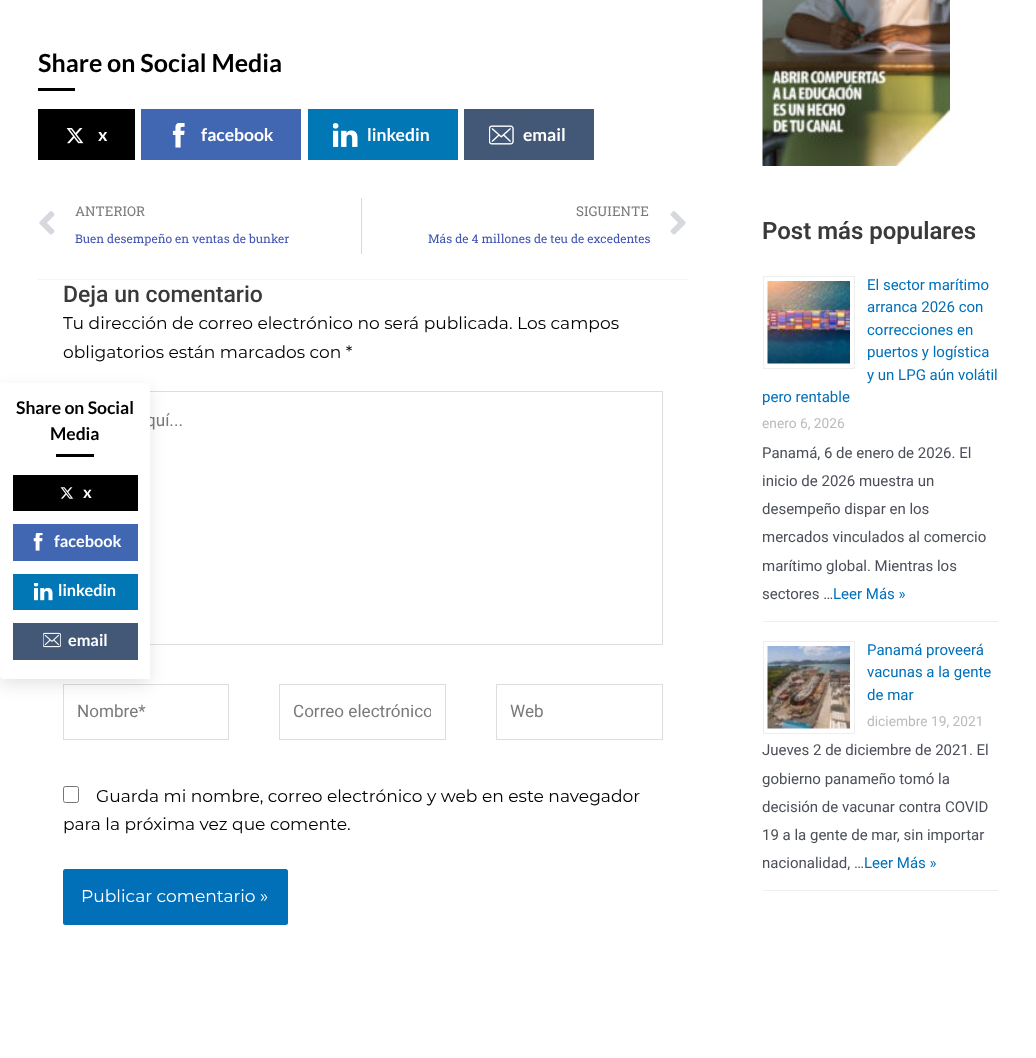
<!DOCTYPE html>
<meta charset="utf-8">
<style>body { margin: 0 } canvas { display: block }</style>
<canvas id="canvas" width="1036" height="1058"></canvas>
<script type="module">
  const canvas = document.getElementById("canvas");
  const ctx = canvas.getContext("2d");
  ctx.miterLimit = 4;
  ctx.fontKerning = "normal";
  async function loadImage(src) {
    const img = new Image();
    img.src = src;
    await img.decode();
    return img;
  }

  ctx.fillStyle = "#ffffff";
  ctx.fillRect(0, 0, 1036, 1058);
  ctx.font = "bold 25px Lato";
  ctx.fillStyle = "#000000";
  ctx.fillText("Share on Social Media", 38, 72);
  ctx.fillRect(38, 88, 37, 3);
  ctx.fillRect(38, 109, 97, 51);
  ctx.drawImage(await loadImage("img1.png"), 66, 128, 18, 16);
  ctx.font = "bold 17.5px Lato";
  ctx.fillStyle = "#ffffff";
  ctx.fillText("x", 98, 141);
  ctx.fillStyle = "#4267b2";
  ctx.fillRect(141, 109, 160, 51);
  ctx.drawImage(await loadImage("img2.png"), 172, 123, 13, 25);
  ctx.fillStyle = "#ffffff";
  ctx.fillText("facebook", 201, 141);
  ctx.fillStyle = "#0177b5";
  ctx.fillRect(308, 109, 150, 51);
  ctx.drawImage(await loadImage("img3.png"), 333, 123, 25, 24);
  ctx.fillStyle = "#ffffff";
  ctx.fillText("linkedin", 367, 141);
  ctx.fillStyle = "#435877";
  ctx.fillRect(464, 109, 130, 51);
  ctx.drawImage(await loadImage("img4.png"), 489, 125, 25, 20);
  ctx.fillStyle = "#ffffff";
  ctx.fillText("email", 523, 141);
  ctx.drawImage(await loadImage("img5.png"), 39, 211, 16, 24);
  ctx.font = "13.5px Roboto Slab";
  ctx.fillStyle = "#7a7a7a";
  ctx.fillText("ANTERIOR", 75, 216);
  ctx.font = "12px Roboto Slab";
  ctx.fillStyle = "#4054b2";
  ctx.fillText("Buen desempeño en ventas de bunker", 75, 243);
  ctx.fillStyle = "#d5d8dc";
  ctx.fillRect(361, 198, 1, 56);
  ctx.font = "13.5px Roboto Slab";
  ctx.fillStyle = "#7a7a7a";
  ctx.fillText("SIGUIENTE", 576, 216);
  ctx.font = "12px Roboto Slab";
  ctx.fillStyle = "#4054b2";
  ctx.fillText("Más de 4 millones de teu de excedentes", 428, 243);
  ctx.drawImage(await loadImage("img6.png"), 670, 211, 16, 24);
  ctx.fillStyle = "#f2f5f7";
  ctx.fillRect(38, 279, 650, 1);
  ctx.font = "500 23px Roboto";
  ctx.fillStyle = "#3a3a3a";
  ctx.fillText("Deja un comentario", 63, 302);
  ctx.font = "17.1px Montserrat";
  ctx.fillStyle = "#000000";
  ctx.fillText("Tu dirección de correo electrónico no será publicada. Los campos", 63, 329);
  ctx.fillText("obligatorios están marcados con *", 63, 358);
  ctx.strokeStyle = "#dddddd";
  ctx.strokeRect(63.5, 391.5, 599, 253);
  ctx.font = "17.1px Roboto";
  ctx.fillStyle = "#7a7a7a";
  ctx.fillText("quí...", 146, 426);
  ctx.strokeRect(63.5, 684.5, 165, 55);
  ctx.fillText("Nombre*", 77, 717);
  ctx.strokeRect(279.5, 684.5, 166, 55);
  ctx.save();
  ctx.beginPath();
  ctx.rect(294, 701, 137, 20);
  ctx.clip();
  ctx.fillText("Correo electrónico", 293, 717);
  ctx.restore();
  ctx.strokeRect(496.5, 684.5, 166, 55);
  ctx.fillText("Web", 510, 717);
  ctx.beginPath();
  ctx.roundRect(63.5, 786.5, 15, 16, 2);
  ctx.strokeStyle = "#767676";
  ctx.stroke();
  ctx.font = "17.1px Montserrat";
  ctx.fillStyle = "#000000";
  ctx.fillText("Guarda mi nombre, correo electrónico y web en este navegador", 96, 802);
  ctx.fillText("para la próxima vez que comente.", 63, 830);
  ctx.fillStyle = "#0170b9";
  ctx.beginPath();
  ctx.roundRect(63, 869, 225, 56, 2.5);
  ctx.fill();
  ctx.fillStyle = "#ffffff";
  ctx.fillText("Publicar comentario »", 81, 902);
  ctx.drawImage(await loadImage("img7.png"), 762, 0, 188, 166);
  ctx.font = "600 24px Roboto";
  ctx.fillStyle = "#3a3a3a";
  ctx.fillText("Post más populares", 762, 239);
  ctx.fillStyle = "#eeeeee";
  ctx.fillRect(763, 621, 235, 1);
  ctx.strokeStyle = "#eeeeee";
  ctx.strokeRect(763.5, 276.5, 91, 92);
  ctx.drawImage(await loadImage("img8.png"), 767, 281, 83, 83);
  ctx.font = "15px Roboto";
  ctx.fillStyle = "#0170b9";
  ctx.fillText("El sector marítimo", 867, 290);
  ctx.fillText("arranca 2026 con", 867, 312);
  ctx.fillText("correcciones en", 867, 335);
  ctx.fillText("puertos y logística", 867, 357);
  ctx.fillText("y un LPG aún volátil", 867, 380);
  ctx.fillText("pero rentable", 762, 402);
  ctx.font = "13.75px Roboto";
  ctx.fillStyle = "#bbbbbb";
  ctx.fillText("enero 6, 2026", 762, 428);
  ctx.font = "15px Roboto";
  ctx.fillStyle = "#4b4f58";
  ctx.fillText("Panamá, 6 de enero de 2026. El", 762, 458);
  ctx.fillText("inicio de 2026 muestra un", 762, 486);
  ctx.fillText("desempeño dispar en los", 762, 514);
  ctx.fillText("mercados vinculados al comercio", 762, 542);
  ctx.fillText("marítimo global. Mientras los", 762, 571);
  ctx.fillText("sectores …", 762, 599);
  ctx.fillStyle = "#0170b9";
  ctx.fillText("Leer Más »", 833, 599);
  ctx.fillStyle = "#eeeeee";
  ctx.fillRect(763, 890, 235, 1);
  ctx.strokeRect(763.5, 641.5, 91, 92);
  ctx.drawImage(await loadImage("img9.png"), 767, 646, 83, 83);
  ctx.fillStyle = "#0170b9";
  ctx.fillText("Panamá proveerá", 867, 655);
  ctx.fillText("vacunas a la gente", 867, 677);
  ctx.fillText("de mar", 867, 700);
  ctx.font = "13.75px Roboto";
  ctx.fillStyle = "#bbbbbb";
  ctx.fillText("diciembre 19, 2021", 867, 726);
  ctx.font = "15px Roboto";
  ctx.fillStyle = "#4b4f58";
  ctx.fillText("Jueves 2 de diciembre de 2021. El", 762, 755);
  ctx.fillText("gobierno panameño tomó la", 762, 784);
  ctx.fillText("decisión de vacunar contra COVID", 762, 812);
  ctx.fillText("19 a la gente de mar, sin importar", 762, 840);
  ctx.fillText("nacionalidad, …", 762, 868);
  ctx.fillStyle = "#0170b9";
  ctx.fillText("Leer Más »", 864, 868);
  ctx.fillStyle = "rgba(0, 0, 0, 0.1)";
  ctx.filter = "blur(8px)";
  ctx.beginPath();
  ctx.roundRect(0, 389, 150, 296, 4);
  ctx.fill();
  ctx.filter = "none";
  ctx.fillStyle = "#ffffff";
  ctx.beginPath();
  ctx.roundRect(0, 383, 150, 296, [4, 0, 0, 4]);
  ctx.fill();
  ctx.font = "bold 17.5px Lato";
  ctx.fillStyle = "#000000";
  ctx.fillText("Share on Social", 16, 414);
  ctx.fillText("Media", 50, 440);
  ctx.fillRect(56, 454, 38, 3);
  ctx.fillRect(13, 475, 125, 36);
  ctx.drawImage(await loadImage("img10.png"), 60, 487, 14, 12);
  ctx.font = "bold 16.25px Lato";
  ctx.fillStyle = "#ffffff";
  ctx.fillText("x", 83, 498);
  ctx.fillStyle = "#4267b2";
  ctx.fillRect(13, 524, 125, 37);
  ctx.drawImage(await loadImage("img11.png"), 33, 533, 10, 18);
  ctx.fillStyle = "#ffffff";
  ctx.fillText("facebook", 54, 547);
  ctx.fillStyle = "#0177b5";
  ctx.fillRect(13, 574, 125, 36);
  ctx.drawImage(await loadImage("img12.png"), 34, 583, 19, 18);
  ctx.fillStyle = "#ffffff";
  ctx.fillText("linkedin", 58, 596);
  ctx.fillStyle = "#435877";
  ctx.fillRect(13, 623, 125, 37);
  ctx.drawImage(await loadImage("img13.png"), 43, 632, 18, 16);
  ctx.fillStyle = "#ffffff";
  ctx.fillText("email", 68, 646);
</script>
